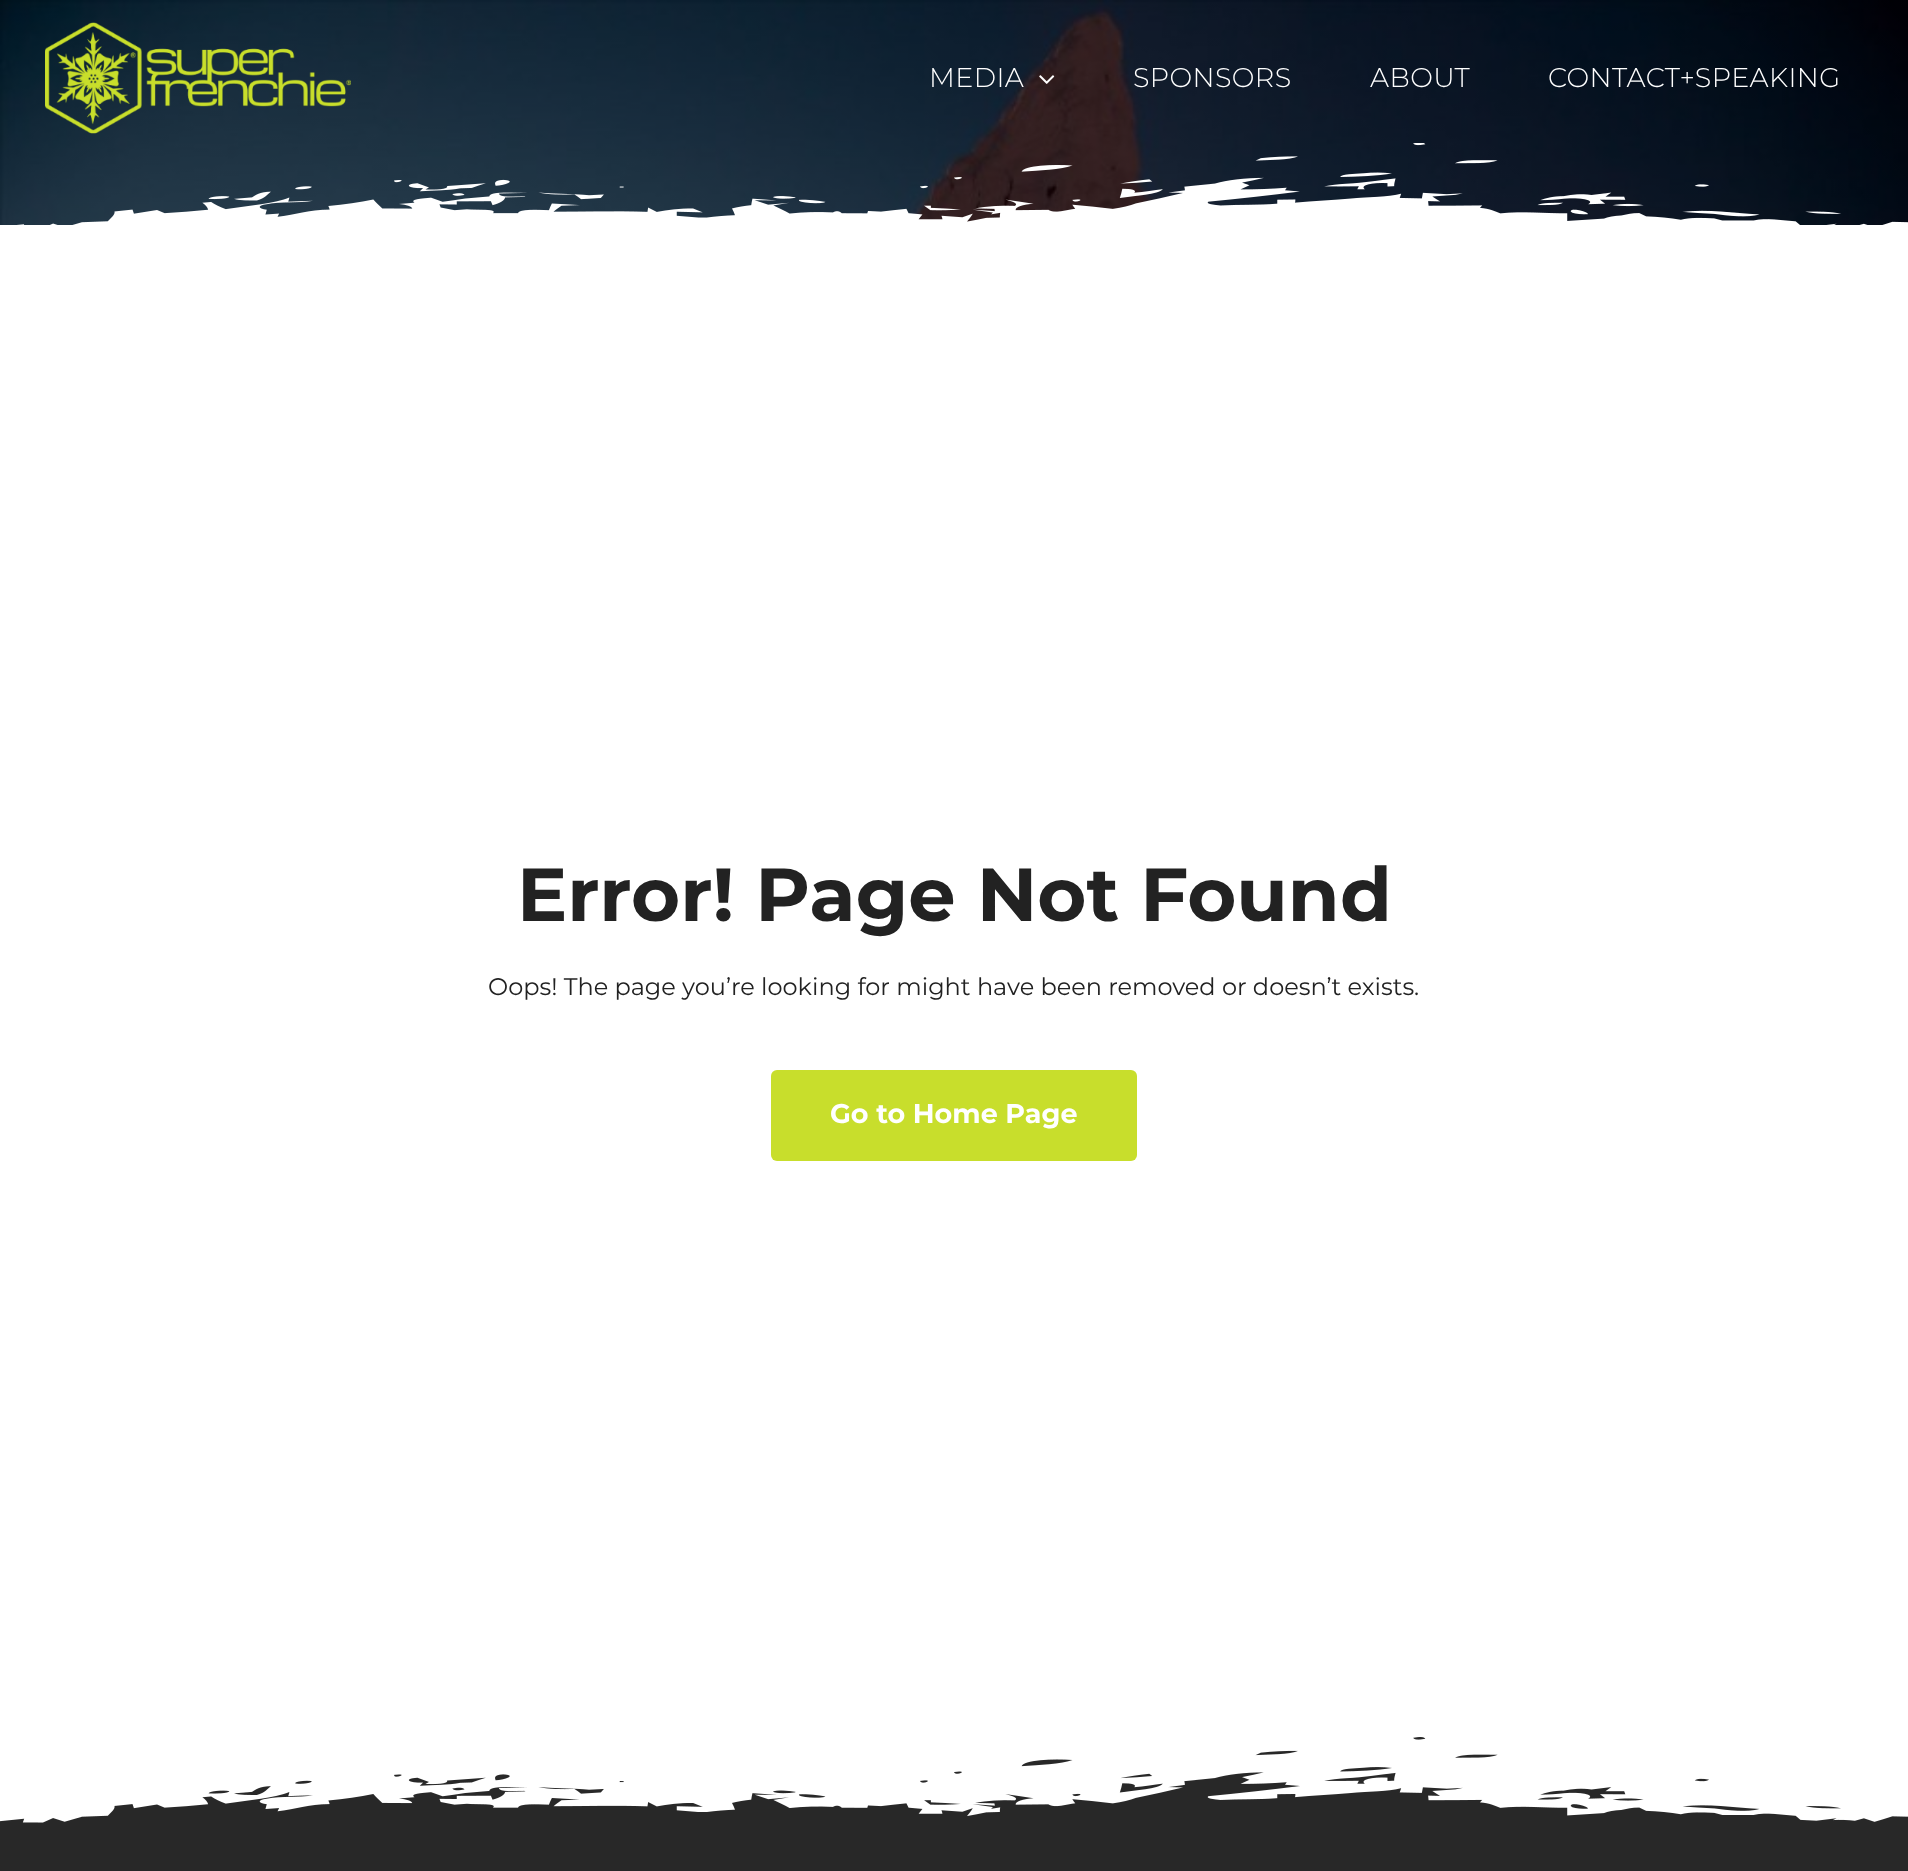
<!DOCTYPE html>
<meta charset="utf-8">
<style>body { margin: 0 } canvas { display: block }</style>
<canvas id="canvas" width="1908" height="1871"></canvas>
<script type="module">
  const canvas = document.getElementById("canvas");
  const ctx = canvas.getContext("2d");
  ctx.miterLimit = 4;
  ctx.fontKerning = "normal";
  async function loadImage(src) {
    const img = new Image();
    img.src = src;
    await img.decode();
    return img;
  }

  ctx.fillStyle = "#ffffff";
  ctx.fillRect(0, 0, 1908, 1871);
  ctx.drawImage(await loadImage("img1.png"), 0, 0, 1908, 225);
  ctx.drawImage(await loadImage("img2.png"), 17, 143, 1891, 82);
  ctx.drawImage(await loadImage("img3.png"), 45, 22, 306, 112);
  ctx.letterSpacing = "0.4px";
  ctx.font = "300 27px Montserrat";
  ctx.fillText("MEDIA", 929, 87);
  ctx.drawImage(await loadImage("img4.png"), 1039, 75, 16, 9);
  ctx.fillText("SPONSORS", 1133, 87);
  ctx.fillText("ABOUT", 1370, 87);
  ctx.fillText("CONTACT+SPEAKING", 1548, 87);
  ctx.letterSpacing = "0px";
  ctx.font = "bold 75px Montserrat";
  ctx.fillStyle = "#222222";
  ctx.fillText("Error! Page Not Found", 517, 921);
  ctx.font = "24px Montserrat";
  ctx.fillText("Oops! The page you’re looking for might have been removed or doesn’t exists.", 488, 995);
  ctx.fillStyle = "#c8de2c";
  ctx.beginPath();
  ctx.roundRect(771, 1070, 366, 91, 6);
  ctx.fill();
  ctx.font = "bold 27px Montserrat";
  ctx.fillStyle = "#ffffff";
  ctx.fillText("Go to Home Page", 830, 1123);
  ctx.drawImage(await loadImage("img5.png"), 0, 1737, 1908, 95);
  ctx.fillStyle = "#282828";
  ctx.fillRect(0, 1832, 1908, 39);
</script>
